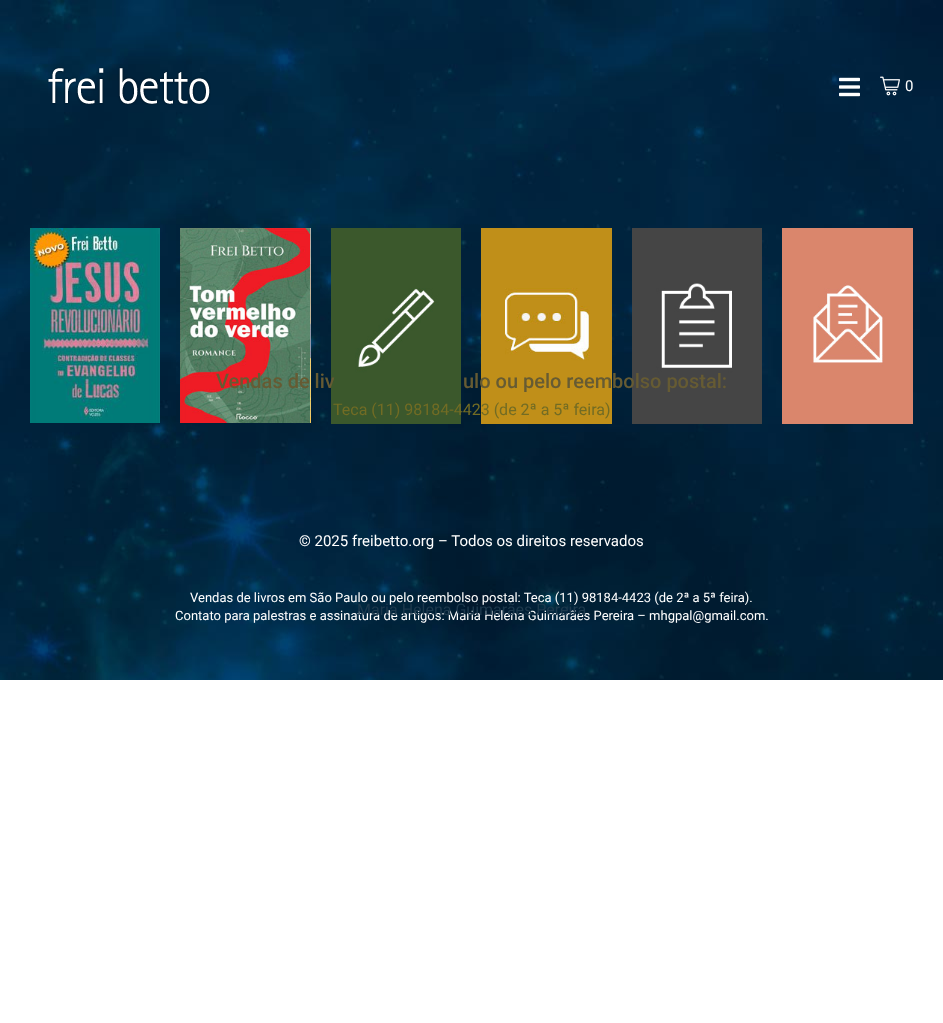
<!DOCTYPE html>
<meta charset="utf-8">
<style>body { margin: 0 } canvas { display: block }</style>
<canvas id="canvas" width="943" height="1023"></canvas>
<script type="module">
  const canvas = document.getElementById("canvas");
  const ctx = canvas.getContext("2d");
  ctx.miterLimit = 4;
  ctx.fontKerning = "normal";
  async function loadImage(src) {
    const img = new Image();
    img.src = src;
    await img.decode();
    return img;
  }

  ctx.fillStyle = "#ffffff";
  ctx.fillRect(0, 0, 943, 1023);
  ctx.drawImage(await loadImage("img1.png"), 0, 0, 943, 680);
  ctx.drawImage(await loadImage("img2.png"), 47, 67, 164, 38);
  ctx.drawImage(await loadImage("img3.png"), 839, 77, 21, 20);
  ctx.drawImage(await loadImage("img4.png"), 880, 76, 20, 20);
  ctx.font = "15px Roboto";
  ctx.fillText("0", 905, 91);
  ctx.drawImage(await loadImage("img5.png"), 30, 228, 130, 195);
  ctx.drawImage(await loadImage("img6.png"), 180, 228, 130, 195);
  ctx.drawImage(await loadImage("img7.png"), 310, 228, 1, 195);
  ctx.drawImage(await loadImage("img8.png"), 331, 228, 130, 196);
  ctx.drawImage(await loadImage("img9.png"), 481, 228, 131, 196);
  ctx.drawImage(await loadImage("img10.png"), 632, 228, 130, 196);
  ctx.drawImage(await loadImage("img11.png"), 782, 228, 131, 196);
  ctx.fillText("© 2025 freibetto.org – Todos os direitos reservados", 299, 546);
  ctx.font = "13px Roboto";
  ctx.fillText("Vendas de livros em São Paulo ou pelo reembolso postal: Teca (11) 98184-4423 (de 2ª a 5ª feira).", 190, 602);
  ctx.fillText("Contato para palestras e assinatura de artigos: Maria Helena Guimarães Pereira – mhgpal@gmail.com.", 175, 620);
  ctx.font = "500 20px Roboto";
  ctx.fillStyle = "#665b33";
  ctx.fillText("Vendas de liv", 216, 388);
  ctx.fillText("ulo ou pelo reembolso postal:", 463, 388);
  ctx.font = "16px Roboto";
  ctx.fillStyle = "#726c24";
  ctx.fillText("Teca (11) 98184-4423 (de 2ª a 5ª feira)", 333, 415);
  ctx.fillStyle = "#1d394d";
  ctx.fillText("Maria Helena Guimarães Pereira", 357, 615);
</script>
